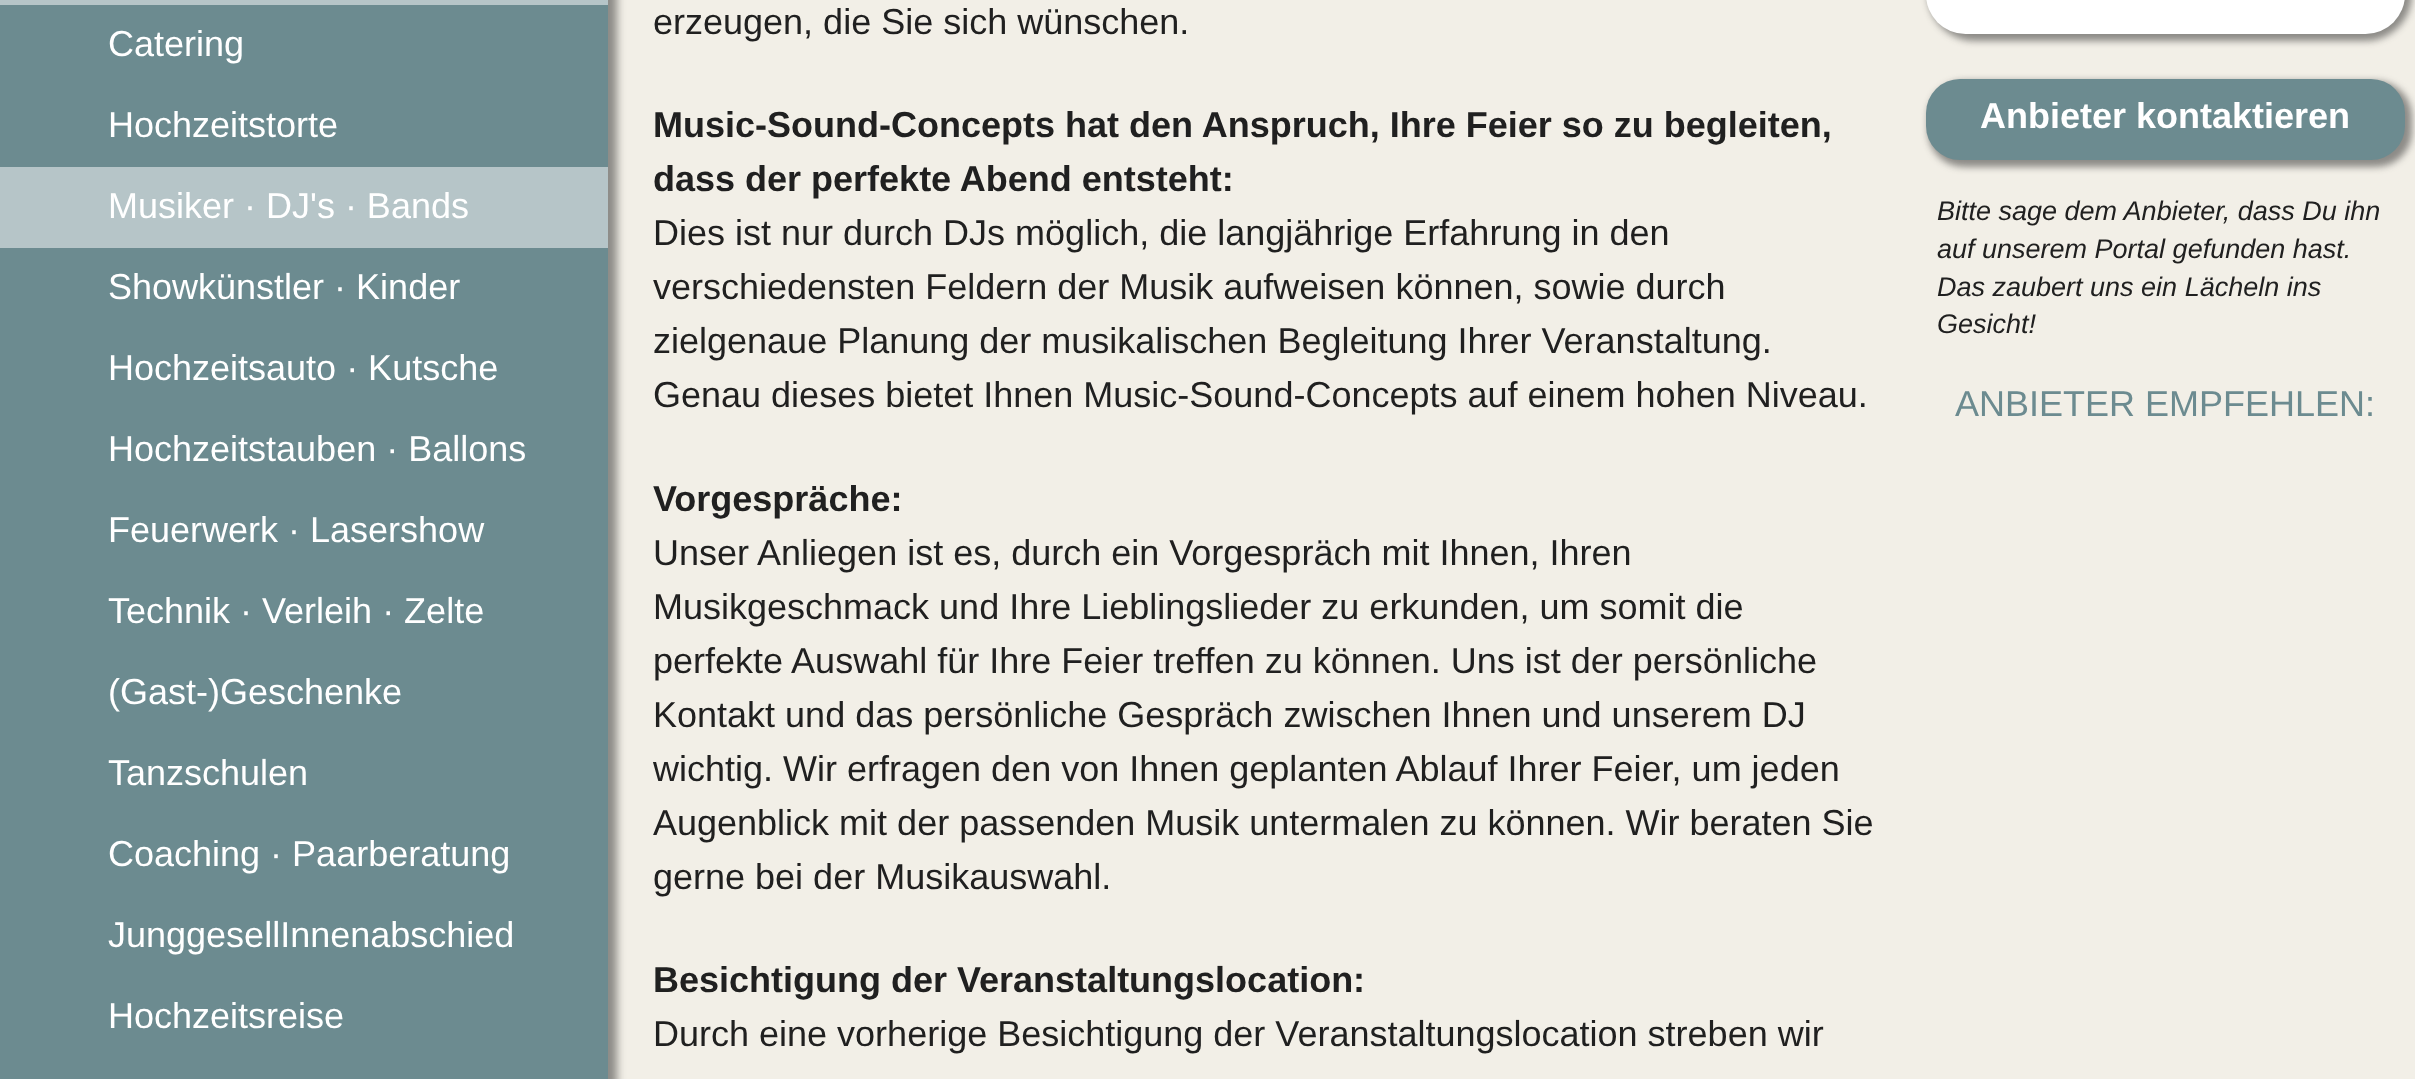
<!DOCTYPE html>
<meta charset="utf-8">
<style>body { margin: 0 } canvas { display: block }</style>
<canvas id="canvas" width="2415" height="1079"></canvas>
<script type="module">
  const canvas = document.getElementById("canvas");
  const ctx = canvas.getContext("2d");
  ctx.miterLimit = 4;
  ctx.fontKerning = "normal";

  ctx.fillStyle = "#f2efe7";
  ctx.fillRect(0, 0, 2415, 1079);
  ctx.fillStyle = "rgba(40, 40, 40, 0.5)";
  ctx.filter = "blur(4.5px)";
  ctx.beginPath();
  ctx.roundRect(5, -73, 612, 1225, 59);
  ctx.fill();
  ctx.filter = "none";
  ctx.fillStyle = "#6c8b90";
  ctx.fillRect(0, 5, 608, 1074);
  ctx.fillStyle = "#b6c5c8";
  ctx.fillRect(0, 0, 608, 5);
  ctx.font = "36px Liberation Sans";
  ctx.fillStyle = "#ffffff";
  ctx.fillText("Catering", 108, 56);
  ctx.fillText("Hochzeitstorte", 108, 137);
  ctx.fillStyle = "#b6c5c8";
  ctx.fillRect(0, 167, 608, 81);
  ctx.fillStyle = "#ffffff";
  ctx.fillText("Musiker · DJ's · Bands", 108, 218);
  ctx.fillText("Showkünstler · Kinder", 108, 299);
  ctx.fillText("Hochzeitsauto · Kutsche", 108, 380);
  ctx.fillText("Hochzeitstauben · Ballons", 108, 461);
  ctx.fillText("Feuerwerk · Lasershow", 108, 542);
  ctx.fillText("Technik · Verleih · Zelte", 108, 623);
  ctx.fillText("(Gast-)Geschenke", 108, 704);
  ctx.fillText("Tanzschulen", 108, 785);
  ctx.fillText("Coaching · Paarberatung", 108, 866);
  ctx.fillText("JunggesellInnenabschied", 108, 947);
  ctx.fillText("Hochzeitsreise", 108, 1028);
  ctx.fillStyle = "#202020";
  ctx.fillText("erzeugen, die Sie sich wünschen.", 653, 34);
  ctx.font = "bold 36px Liberation Sans";
  ctx.fillText("Music-Sound-Concepts hat den Anspruch, Ihre Feier so zu begleiten,", 653, 137);
  ctx.fillText("dass der perfekte Abend entsteht:", 653, 191);
  ctx.font = "36px Liberation Sans";
  ctx.fillText("Dies ist nur durch DJs möglich, die langjährige Erfahrung in den", 653, 245);
  ctx.fillText("verschiedensten Feldern der Musik aufweisen können, sowie durch", 653, 299);
  ctx.fillText("zielgenaue Planung der musikalischen Begleitung Ihrer Veranstaltung.", 653, 353);
  ctx.fillText("Genau dieses bietet Ihnen Music-Sound-Concepts auf einem hohen Niveau.", 653, 407);
  ctx.font = "bold 36px Liberation Sans";
  ctx.fillText("Vorgespräche:", 653, 511);
  ctx.font = "36px Liberation Sans";
  ctx.fillText("Unser Anliegen ist es, durch ein Vorgespräch mit Ihnen, Ihren", 653, 565);
  ctx.fillText("Musikgeschmack und Ihre Lieblingslieder zu erkunden, um somit die", 653, 619);
  ctx.fillText("perfekte Auswahl für Ihre Feier treffen zu können. Uns ist der persönliche", 653, 673);
  ctx.fillText("Kontakt und das persönliche Gespräch zwischen Ihnen und unserem DJ", 653, 727);
  ctx.fillText("wichtig. Wir erfragen den von Ihnen geplanten Ablauf Ihrer Feier, um jeden", 653, 781);
  ctx.fillText("Augenblick mit der passenden Musik untermalen zu können. Wir beraten Sie", 653, 835);
  ctx.fillText("gerne bei der Musikauswahl.", 653, 889);
  ctx.font = "bold 36px Liberation Sans";
  ctx.fillText("Besichtigung der Veranstaltungslocation:", 653, 992);
  ctx.font = "36px Liberation Sans";
  ctx.fillText("Durch eine vorherige Besichtigung der Veranstaltungslocation streben wir", 653, 1046);
  ctx.fillStyle = "rgba(40, 40, 40, 0.5)";
  ctx.filter = "blur(3.5px)";
  ctx.beginPath();
  ctx.roundRect(1928, -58, 484, 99, 47);
  ctx.fill();
  ctx.filter = "none";
  ctx.fillStyle = "#ffffff";
  ctx.beginPath();
  ctx.roundRect(1926, -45, 479, 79, 45);
  ctx.fill();
  ctx.fillStyle = "rgba(40, 40, 40, 0.5)";
  ctx.filter = "blur(3.5px)";
  ctx.beginPath();
  ctx.roundRect(1928, 81, 484, 86, 36);
  ctx.fill();
  ctx.filter = "none";
  ctx.fillStyle = "#6c8b90";
  ctx.beginPath();
  ctx.roundRect(1926, 79, 479, 81, 34);
  ctx.fill();
  ctx.font = "bold 36px Liberation Sans";
  ctx.fillStyle = "#ffffff";
  ctx.fillText("Anbieter kontaktieren", 1980, 128);
  ctx.font = "italic 27px Liberation Sans";
  ctx.fillStyle = "#202020";
  ctx.fillText("Bitte sage dem Anbieter, dass Du ihn", 1937, 220);
  ctx.fillText("auf unserem Portal gefunden hast.", 1937, 258);
  ctx.fillText("Das zaubert uns ein Lächeln ins", 1937, 296);
  ctx.fillText("Gesicht!", 1937, 333);
  ctx.font = "36px Liberation Sans";
  ctx.fillStyle = "#6c8b90";
  ctx.fillText("ANBIETER EMPFEHLEN:", 1955, 416);
</script>
